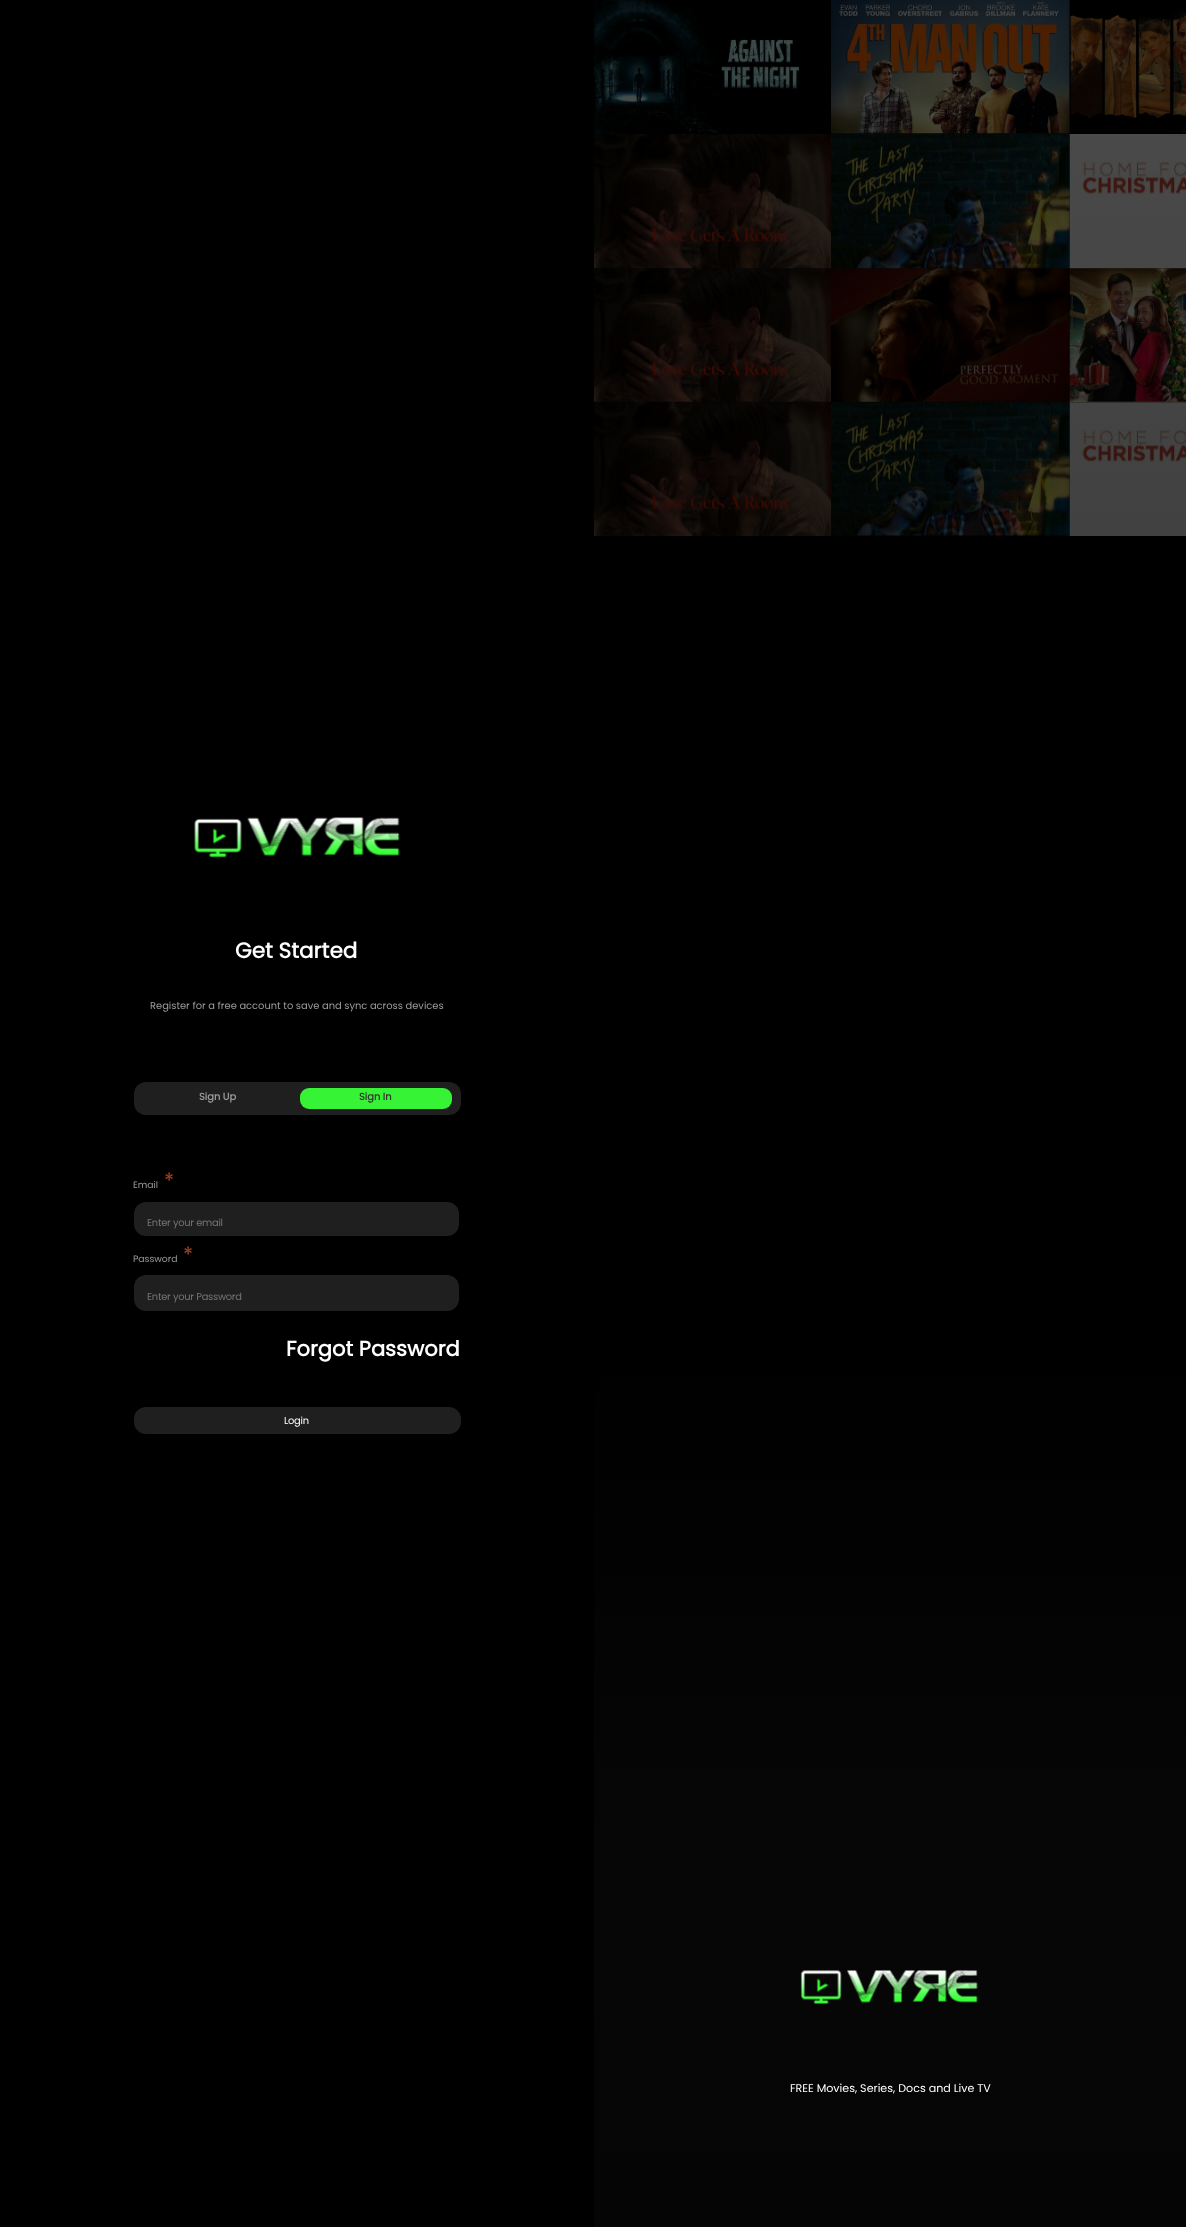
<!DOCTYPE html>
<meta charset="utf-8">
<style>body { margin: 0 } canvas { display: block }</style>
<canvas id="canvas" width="1186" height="2227"></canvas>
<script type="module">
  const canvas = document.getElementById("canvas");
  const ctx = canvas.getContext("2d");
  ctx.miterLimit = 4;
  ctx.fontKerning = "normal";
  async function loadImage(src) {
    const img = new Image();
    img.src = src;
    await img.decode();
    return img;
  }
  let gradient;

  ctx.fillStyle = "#000000";
  ctx.fillRect(0, 0, 1186, 2227);
  ctx.drawImage(await loadImage("img1.png"), 194, 817, 206, 41);
  ctx.font = "bold 21.5px Poppins";
  ctx.fillStyle = "#ffffff";
  ctx.fillText("Get Started", 235, 958);
  ctx.font = "9.9px Poppins";
  ctx.fillStyle = "#9d9d9d";
  ctx.fillText("Register for a free account to save and sync across devices", 150, 1009);
  ctx.fillStyle = "#1f1f1f";
  ctx.beginPath();
  ctx.roundRect(134, 1082, 327, 33, 12);
  ctx.fill();
  ctx.font = "bold 9.9px Poppins";
  ctx.fillStyle = "#9d9d9d";
  ctx.fillText("Sign Up", 199, 1100);
  ctx.fillStyle = "#36f335";
  ctx.beginPath();
  ctx.roundRect(300, 1088, 152, 21, 9);
  ctx.fill();
  ctx.fillStyle = "#333333";
  ctx.fillText("Sign In", 359, 1100);
  ctx.font = "21px Poppins";
  ctx.fillStyle = "#ab4522";
  ctx.fillText("*", 164, 1188);
  ctx.font = "9.25px Poppins";
  ctx.fillStyle = "#9d9d9d";
  ctx.fillText("Email", 133, 1188);
  ctx.fillStyle = "#1f1f1f";
  ctx.beginPath();
  ctx.roundRect(134, 1202, 325, 34, 12);
  ctx.fill();
  ctx.letterSpacing = "-0.25px";
  ctx.font = "9.9px Poppins";
  ctx.fillStyle = "#757575";
  ctx.fillText("Enter your email", 147, 1226);
  ctx.letterSpacing = "0px";
  ctx.font = "21px Poppins";
  ctx.fillStyle = "#ab4522";
  ctx.fillText("*", 183, 1262);
  ctx.font = "9.25px Poppins";
  ctx.fillStyle = "#9d9d9d";
  ctx.fillText("Password", 133, 1262);
  ctx.fillStyle = "#1f1f1f";
  ctx.beginPath();
  ctx.roundRect(134, 1275, 325, 36, 12);
  ctx.fill();
  ctx.letterSpacing = "-0.25px";
  ctx.font = "9.9px Poppins";
  ctx.fillStyle = "#757575";
  ctx.fillText("Enter your Password", 147, 1300);
  ctx.letterSpacing = "0px";
  ctx.font = "bold 21px Poppins";
  ctx.fillStyle = "#ffffff";
  ctx.fillText("Forgot Password", 286, 1356);
  ctx.fillStyle = "#1f1f1f";
  ctx.beginPath();
  ctx.roundRect(134, 1407, 327, 27, 12);
  ctx.fill();
  ctx.letterSpacing = "-0.25px";
  ctx.font = "9.9px Poppins";
  ctx.fillStyle = "#ffffff";
  ctx.fillText("Login", 284, 1424);
  ctx.drawImage(await loadImage("img2.png"), 594, 0, 206, 134);
  ctx.drawImage(await loadImage("img3.png"), 594, 134, 237, 135);
  ctx.drawImage(await loadImage("img4.png"), 594, 268, 237, 134);
  ctx.drawImage(await loadImage("img5.png"), 594, 401, 237, 135);
  ctx.drawImage(await loadImage("img6.png"), 831, 0, 239, 134);
  ctx.drawImage(await loadImage("img11.png"), 1069, 134, 117, 135);
  ctx.drawImage(await loadImage("img12.png"), 1069, 268, 117, 134);
  ctx.drawImage(await loadImage("img7.png"), 831, 133, 239, 136);
  ctx.drawImage(await loadImage("img13.png"), 1069, 401, 117, 135);
  ctx.drawImage(await loadImage("img8.png"), 831, 268, 239, 134);
  ctx.drawImage(await loadImage("img9.png"), 831, 401, 239, 135);
  ctx.drawImage(await loadImage("img10.png"), 1070, 6, 116, 128);
  gradient = ctx.createLinearGradient(890, 0, 890, 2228);
  gradient.addColorStop(0.6, "rgba(0, 0, 0, 0.7)");
  gradient.addColorStop(0.84, "#0c0c0c");
  ctx.fillStyle = gradient;
  ctx.fillRect(594, 0, 592, 2227);
  gradient = ctx.createLinearGradient(890, 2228, 890, 0);
  gradient.addColorStop(0, "rgba(0, 0, 0, 0.6)");
  gradient.addColorStop(0.5, "rgba(0, 0, 0, 0.3)");
  gradient.addColorStop(1, "rgba(0, 0, 0, 0)");
  ctx.fillStyle = gradient;
  ctx.fillRect(594, 134, 592, 2093);
  ctx.drawImage(await loadImage("img14.png"), 800, 1970, 178, 34);
  ctx.letterSpacing = "0px";
  ctx.font = "11.1px Poppins";
  ctx.fillStyle = "#ffffff";
  ctx.fillText("FREE Movies, Series, Docs and Live TV", 790, 2092);
</script>
